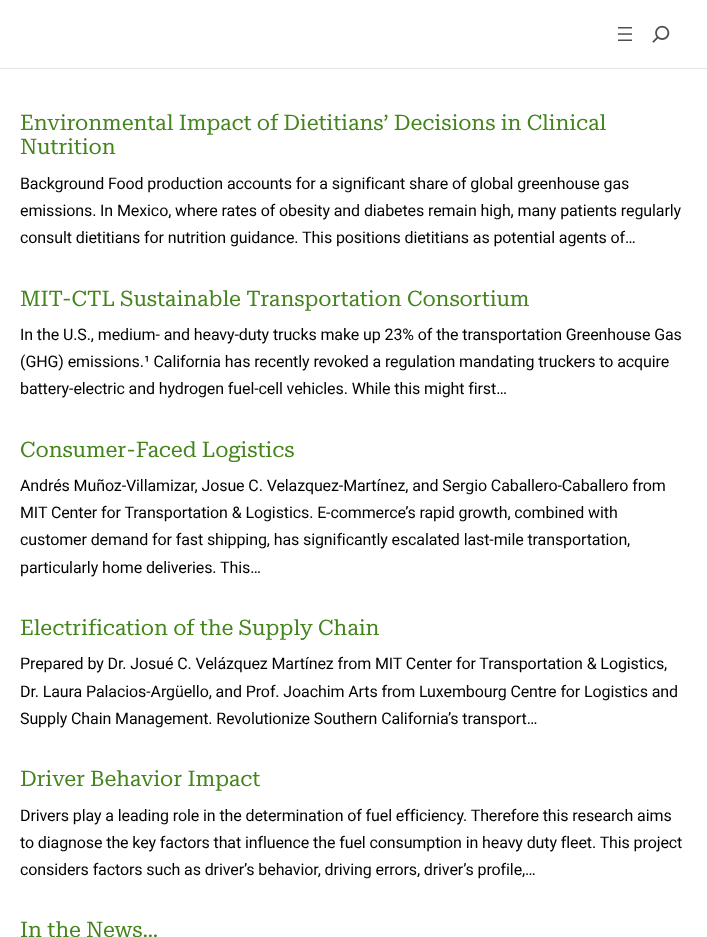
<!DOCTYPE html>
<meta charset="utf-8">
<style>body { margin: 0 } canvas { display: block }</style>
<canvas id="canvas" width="707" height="937"></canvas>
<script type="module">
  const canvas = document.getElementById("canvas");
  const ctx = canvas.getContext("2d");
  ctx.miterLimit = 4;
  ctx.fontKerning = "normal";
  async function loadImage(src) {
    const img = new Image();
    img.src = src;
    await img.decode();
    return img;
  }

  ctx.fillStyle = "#ffffff";
  ctx.fillRect(0, 0, 707, 937);
  ctx.fillStyle = "#e6e6e6";
  ctx.fillRect(0, 68, 707, 1);
  ctx.drawImage(await loadImage("img1.png"), 618, 27, 14, 14);
  ctx.drawImage(await loadImage("img2.png"), 652, 25, 18, 18);
  ctx.letterSpacing = "-0.1px";
  ctx.font = "21.6px Roboto Serif";
  ctx.fillStyle = "#43841b";
  ctx.fillText("Environmental Impact of Dietitians’ Decisions in Clinical", 20, 130);
  ctx.fillText("Nutrition", 20, 154);
  ctx.font = "16px Roboto";
  ctx.fillStyle = "#000000";
  ctx.fillText("Background Food production accounts for a significant share of global greenhouse gas", 20, 189);
  ctx.fillText("emissions. In Mexico, where rates of obesity and diabetes remain high, many patients regularly", 20, 216);
  ctx.fillText("consult dietitians for nutrition guidance. This positions dietitians as potential agents of…", 20, 243);
  ctx.font = "21.6px Roboto Serif";
  ctx.fillStyle = "#43841b";
  ctx.fillText("MIT-CTL Sustainable Transportation Consortium", 20, 306);
  ctx.font = "16px Roboto";
  ctx.fillStyle = "#000000";
  ctx.fillText("In the U.S., medium- and heavy-duty trucks make up 23% of the transportation Greenhouse Gas", 20, 340);
  ctx.fillText("(GHG) emissions.¹ California has recently revoked a regulation mandating truckers to acquire", 20, 367);
  ctx.fillText("battery-electric and hydrogen fuel-cell vehicles. While this might first…", 20, 394);
  ctx.font = "21.6px Roboto Serif";
  ctx.fillStyle = "#43841b";
  ctx.fillText("Consumer-Faced Logistics", 20, 457);
  ctx.font = "16px Roboto";
  ctx.fillStyle = "#000000";
  ctx.fillText("Andrés Muñoz-Villamizar, Josue C. Velazquez-Martínez, and Sergio Caballero-Caballero from", 20, 491);
  ctx.fillText("MIT Center for Transportation & Logistics. E-commerce’s rapid growth, combined with", 20, 518);
  ctx.fillText("customer demand for fast shipping, has significantly escalated last-mile transportation,", 20, 545);
  ctx.fillText("particularly home deliveries. This…", 20, 573);
  ctx.font = "21.6px Roboto Serif";
  ctx.fillStyle = "#43841b";
  ctx.fillText("Electrification of the Supply Chain", 20, 635);
  ctx.font = "16px Roboto";
  ctx.fillStyle = "#000000";
  ctx.fillText("Prepared by Dr. Josué C. Velázquez Martínez from MIT Center for Transportation & Logistics,", 20, 669);
  ctx.fillText("Dr. Laura Palacios-Argüello, and Prof. Joachim Arts from Luxembourg Centre for Logistics and", 20, 697);
  ctx.fillText("Supply Chain Management. Revolutionize Southern California’s transport…", 20, 724);
  ctx.font = "21.6px Roboto Serif";
  ctx.fillStyle = "#43841b";
  ctx.fillText("Driver Behavior Impact", 20, 786);
  ctx.font = "16px Roboto";
  ctx.fillStyle = "#000000";
  ctx.fillText("Drivers play a leading role in the determination of fuel efficiency. Therefore this research aims", 20, 821);
  ctx.fillText("to diagnose the key factors that influence the fuel consumption in heavy duty fleet. This project", 20, 848);
  ctx.fillText("considers factors such as driver’s behavior, driving errors, driver’s profile,…", 20, 875);
  ctx.font = "21.6px Roboto Serif";
  ctx.fillStyle = "#43841b";
  ctx.fillText("In the News…", 20, 937);
</script>
